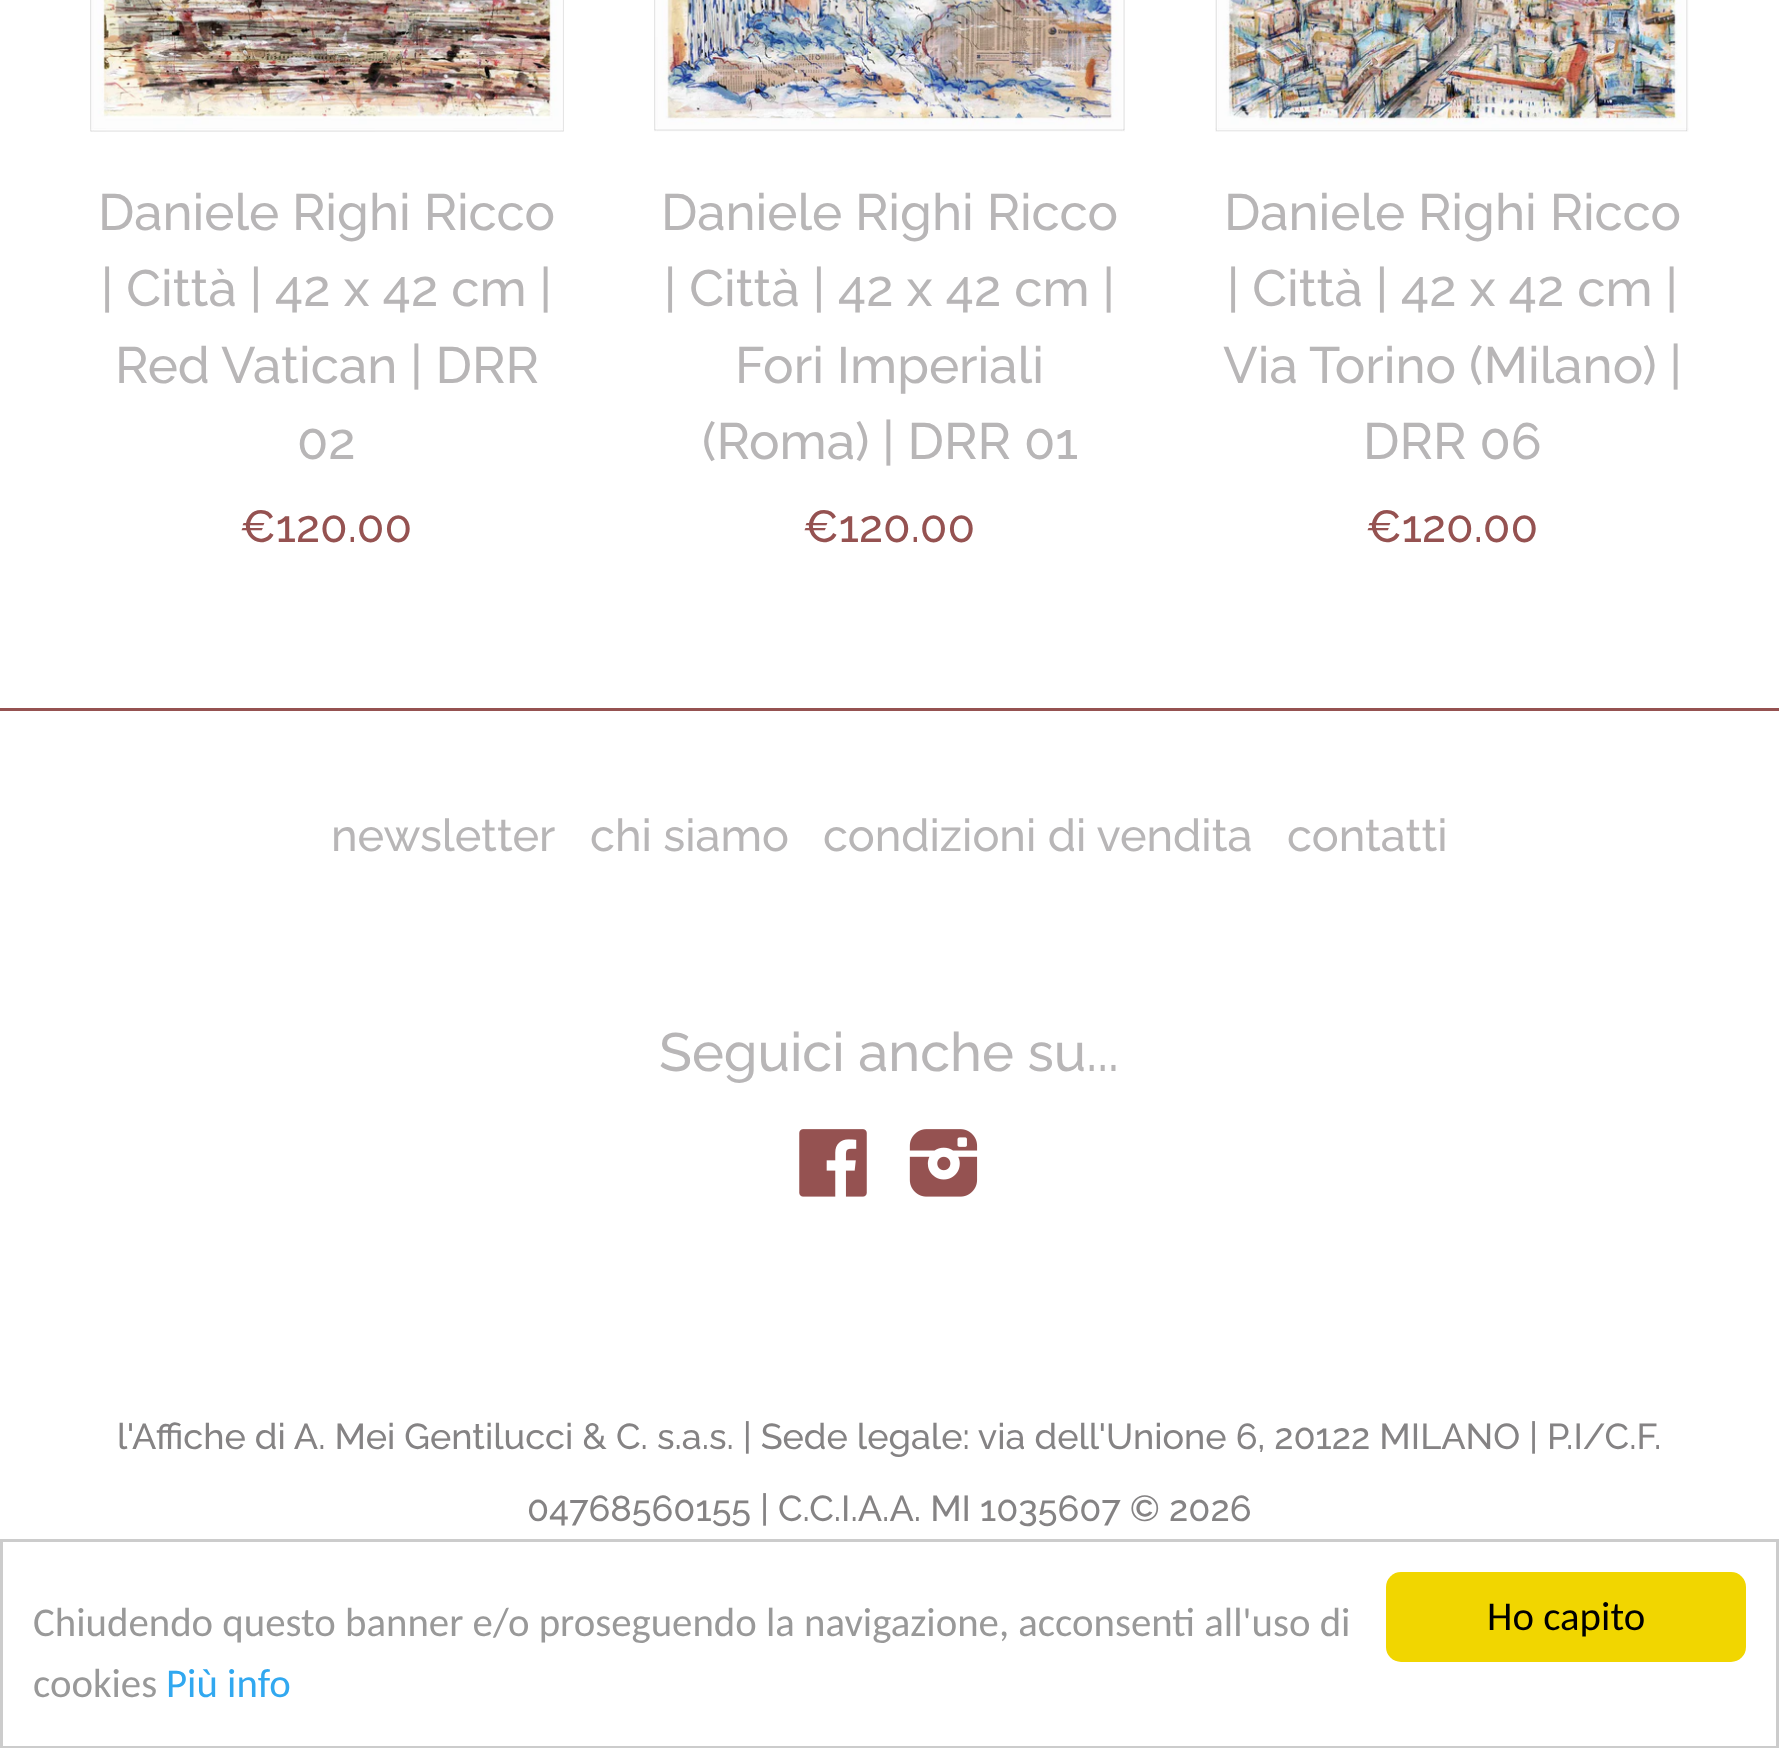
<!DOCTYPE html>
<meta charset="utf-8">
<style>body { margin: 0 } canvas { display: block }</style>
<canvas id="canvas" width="1779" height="1748"></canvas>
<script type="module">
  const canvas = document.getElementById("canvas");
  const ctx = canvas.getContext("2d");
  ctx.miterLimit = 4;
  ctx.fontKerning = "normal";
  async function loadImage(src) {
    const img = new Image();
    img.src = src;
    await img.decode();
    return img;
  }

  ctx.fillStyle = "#ffffff";
  ctx.fillRect(0, 0, 1779, 1748);
  ctx.drawImage(await loadImage("img1.png"), 90, 0, 474, 132);
  ctx.font = "500 51px Raleway";
  ctx.fillStyle = "#b8b6b7";
  ctx.fillText("Daniele Righi Ricco", 98, 230);
  ctx.fillText("| Città | 42 x 42 cm |", 101, 306);
  ctx.fillText("Red Vatican | DRR", 115, 383);
  ctx.fillText("02", 297, 459);
  ctx.font = "500 45px Raleway";
  ctx.fillStyle = "#955251";
  ctx.fillText("€120.00", 240, 542);
  ctx.drawImage(await loadImage("img2.png"), 654, 0, 471, 132);
  ctx.font = "500 51px Raleway";
  ctx.fillStyle = "#b8b6b7";
  ctx.fillText("Daniele Righi Ricco", 661, 230);
  ctx.fillText("| Città | 42 x 42 cm |", 664, 306);
  ctx.fillText("Fori Imperiali", 735, 383);
  ctx.fillText("(Roma) | DRR 01", 702, 459);
  ctx.font = "500 45px Raleway";
  ctx.fillStyle = "#955251";
  ctx.fillText("€120.00", 803, 542);
  ctx.drawImage(await loadImage("img3.png"), 1215, 0, 474, 132);
  ctx.font = "500 51px Raleway";
  ctx.fillStyle = "#b8b6b7";
  ctx.fillText("Daniele Righi Ricco", 1224, 230);
  ctx.fillText("| Città | 42 x 42 cm |", 1227, 306);
  ctx.fillText("Via Torino (Milano) |", 1223, 383);
  ctx.fillText("DRR 06", 1363, 459);
  ctx.font = "500 45px Raleway";
  ctx.fillStyle = "#955251";
  ctx.fillText("€120.00", 1366, 542);
  ctx.fillRect(0, 708, 1779, 3);
  ctx.fillStyle = "#b8b6b7";
  ctx.fillText("newsletter", 331, 851);
  ctx.fillText("chi siamo", 590, 851);
  ctx.fillText("condizioni di vendita", 823, 851);
  ctx.fillText("contatti", 1287, 851);
  ctx.font = "500 54px Raleway";
  ctx.fillText("Seguici anche su...", 659, 1071);
  ctx.drawImage(await loadImage("img4.png"), 799, 1129, 68, 68);
  ctx.drawImage(await loadImage("img5.png"), 909, 1129, 69, 68);
  ctx.font = "500 36px Raleway";
  ctx.fillStyle = "#858384";
  ctx.fillText("l'Affiche di A. Mei Gentilucci & C. s.a.s. | Sede legale: via dell'Unione 6, 20122 MILANO | P.I/C.F.", 117, 1449);
  ctx.fillText("04768560155 | C.C.I.A.A. MI 1035607 © 2026", 527, 1521);
  ctx.strokeStyle = "#cccccc";
  ctx.lineWidth = 3;
  ctx.strokeRect(1.5, 1540.5, 1776, 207);
  ctx.font = "40.8px Carlito";
  ctx.fillStyle = "#999999";
  ctx.fillText("Chiudendo questo banner e/o proseguendo la navigazione, acconsenti all'uso di", 33, 1636);
  ctx.fillText("cookies", 33, 1697);
  ctx.fillStyle = "#31a8f0";
  ctx.fillText("Più info", 166, 1697);
  ctx.fillStyle = "#f1d600";
  ctx.beginPath();
  ctx.roundRect(1386, 1572, 360, 90, 15);
  ctx.fill();
  ctx.fillStyle = "#000000";
  ctx.fillText("Ho capito", 1487, 1630);
</script>
